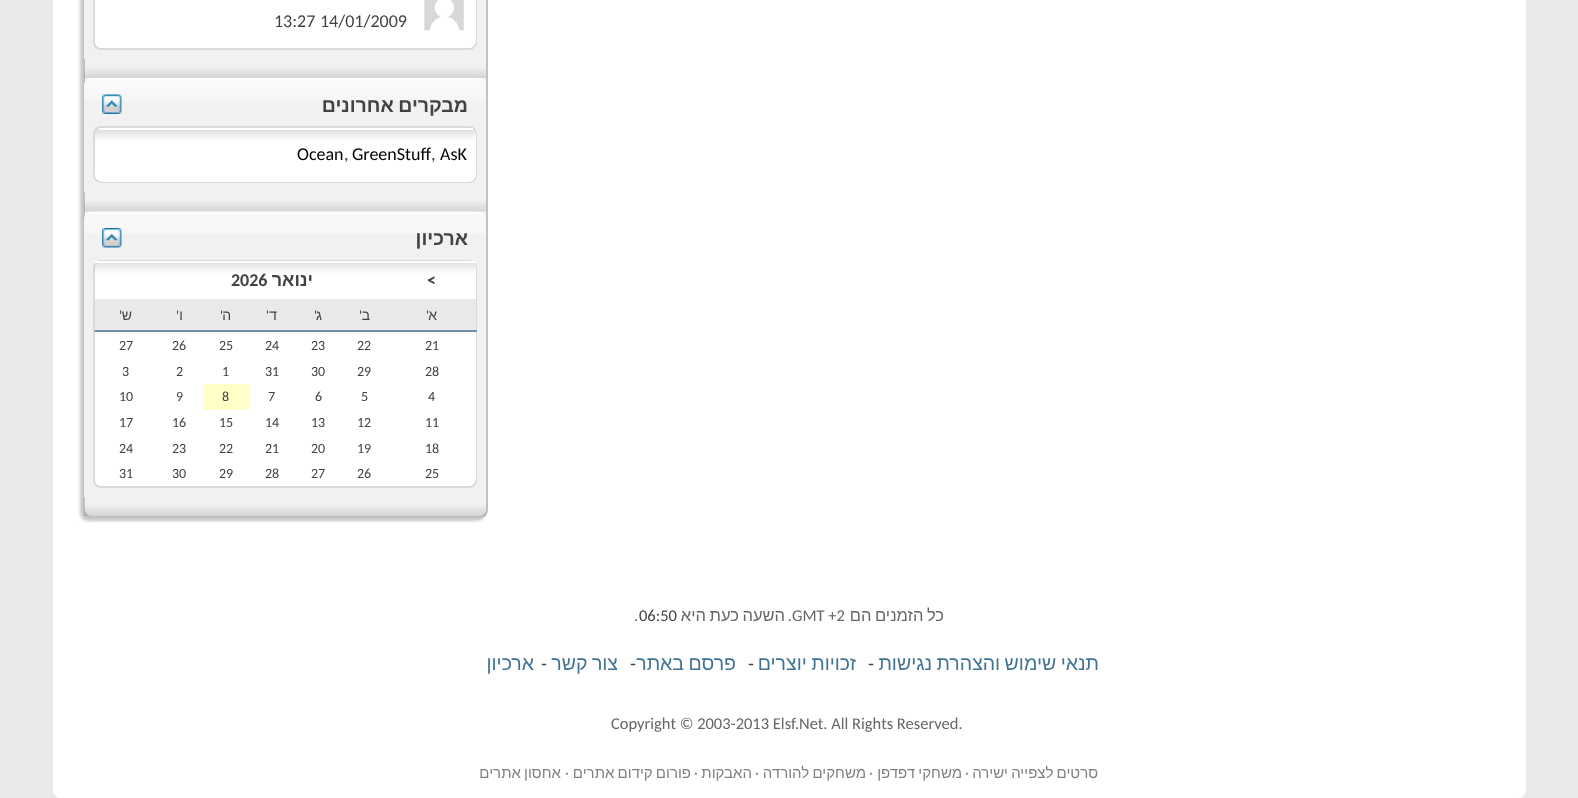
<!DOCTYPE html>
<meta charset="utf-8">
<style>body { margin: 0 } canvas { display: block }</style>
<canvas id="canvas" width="1578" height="798"></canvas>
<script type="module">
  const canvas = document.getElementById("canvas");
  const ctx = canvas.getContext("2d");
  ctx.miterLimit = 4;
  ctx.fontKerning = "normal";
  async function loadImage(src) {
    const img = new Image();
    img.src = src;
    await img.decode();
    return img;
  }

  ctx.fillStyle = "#e9e9e9";
  ctx.fillRect(0, 0, 1578, 798);
  ctx.fillStyle = "#ffffff";
  ctx.beginPath();
  ctx.roundRect(53, -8, 1473, 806, 8);
  ctx.fill();
  ctx.fillStyle = "#c8c8c8";
  ctx.filter = "blur(1.5px)";
  ctx.beginPath();
  ctx.roundRect(80, -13, 405, 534, 8);
  ctx.fill();
  ctx.filter = "none";
  ctx.fillStyle = "#f1f1f1";
  ctx.beginPath();
  ctx.roundRect(84, -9, 403, 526, 7);
  ctx.fill();
  ctx.strokeStyle = "#c1c1c1";
  ctx.lineWidth = 2;
  ctx.stroke();
  ctx.fillRect(84, 0, 1, 59);
  ctx.fillStyle = "#ffffff";
  ctx.beginPath();
  ctx.roundRect(94, -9, 382, 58, 7);
  ctx.fill();
  ctx.strokeStyle = "#dadada";
  ctx.stroke();
  ctx.beginPath();
  ctx.roundRect(95, -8, 381, 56, 8);
  ctx.fill();
  ctx.drawImage(await loadImage("img1.png"), 424, 0, 40, 31);
  ctx.font = "18px Carlito";
  ctx.fillStyle = "#424242";
  ctx.fillText("14/01/2009", 320, 27);
  ctx.fillText("13:27", 274, 27);
  ctx.drawImage(await loadImage("img2.png"), 84, 68, 402, 10);
  ctx.fillStyle = "#f1f1f1";
  ctx.beginPath();
  ctx.roundRect(84, 78, 402, 114, [8, 8, 0, 0]);
  ctx.fill();
  ctx.drawImage(await loadImage("img3.png"), 84, 78, 402, 23);
  ctx.wordSpacing = "-1px";
  ctx.direction = "rtl";
  ctx.font = "bold 19.5px Liberation Sans";
  ctx.fillStyle = "#424242";
  ctx.fillText("מבקרים אחרונים", 468, 112);
  ctx.drawImage(await loadImage("img4.png"), 102, 94, 20, 20);
  ctx.fillStyle = "#ffffff";
  ctx.beginPath();
  ctx.roundRect(94, 127, 382, 55, 7);
  ctx.fill();
  ctx.stroke();
  ctx.beginPath();
  ctx.roundRect(95, 128, 381, 54, 8);
  ctx.fill();
  ctx.drawImage(await loadImage("img5.png"), 95, 129, 380, 11);
  ctx.fillRect(99, 128, 374, 2);
  ctx.wordSpacing = "0px";
  ctx.direction = "ltr";
  ctx.font = "18px Carlito";
  ctx.fillStyle = "#000000";
  ctx.fillText("AsK", 440, 160);
  ctx.fillStyle = "#424242";
  ctx.fillText(",", 431, 160);
  ctx.fillStyle = "#000000";
  ctx.fillText("GreenStuff", 352, 160);
  ctx.fillStyle = "#424242";
  ctx.fillText(",", 344, 160);
  ctx.fillStyle = "#000000";
  ctx.fillText("Ocean", 297, 160);
  ctx.drawImage(await loadImage("img6.png"), 84, 201, 402, 11);
  ctx.fillStyle = "#f1f1f1";
  ctx.beginPath();
  ctx.roundRect(84, 212, 402, 285, [8, 8, 0, 0]);
  ctx.fill();
  ctx.drawImage(await loadImage("img7.png"), 84, 211, 402, 23);
  ctx.direction = "rtl";
  ctx.font = "bold 19.5px Liberation Sans";
  ctx.fillStyle = "#424242";
  ctx.fillText("ארכיון", 468, 245);
  ctx.drawImage(await loadImage("img8.png"), 102, 228, 20, 20);
  ctx.fillStyle = "#ffffff";
  ctx.beginPath();
  ctx.roundRect(94, 261, 382, 226, 7);
  ctx.fill();
  ctx.stroke();
  ctx.beginPath();
  ctx.roundRect(95, 261, 381, 225, 8);
  ctx.fill();
  ctx.drawImage(await loadImage("img9.png"), 94, 263, 381, 69);
  ctx.fillRect(95, 261, 381, 2);
  ctx.direction = "ltr";
  ctx.font = "bold 18px Carlito";
  ctx.fillStyle = "#424242";
  ctx.fillText("<", 427, 286);
  ctx.direction = "rtl";
  ctx.font = "bold 18px Liberation Sans";
  ctx.fillText("ינואר", 313, 286);
  ctx.direction = "ltr";
  ctx.font = "bold 18px Carlito";
  ctx.fillText("2026", 231, 286);
  ctx.fillStyle = "#e9e9e9";
  ctx.fillRect(95, 299, 381, 31);
  ctx.fillStyle = "#6b91ab";
  ctx.fillRect(95, 331, 63, 1);
  ctx.fillRect(156, 330, 47, 2);
  ctx.fillRect(201, 331, 48, 1);
  ctx.fillRect(248, 330, 94, 2);
  ctx.fillRect(341, 331, 48, 1);
  ctx.fillRect(387, 330, 90, 2);
  ctx.direction = "rtl";
  ctx.font = "14px Liberation Sans";
  ctx.fillStyle = "#424242";
  ctx.fillText("א", 437, 320);
  ctx.font = "14px Carlito";
  ctx.fillText("'", 429, 320);
  ctx.font = "14px Liberation Sans";
  ctx.fillText("ב", 370, 320);
  ctx.font = "14px Carlito";
  ctx.fillText("'", 362, 320);
  ctx.font = "14px Liberation Sans";
  ctx.fillText("ג", 322, 320);
  ctx.font = "14px Carlito";
  ctx.fillText("'", 317, 320);
  ctx.font = "14px Liberation Sans";
  ctx.fillText("ד", 277, 320);
  ctx.font = "14px Carlito";
  ctx.fillText("'", 269, 320);
  ctx.font = "14px Liberation Sans";
  ctx.fillText("ה", 231, 320);
  ctx.font = "14px Carlito";
  ctx.fillText("'", 223, 320);
  ctx.font = "14px Liberation Sans";
  ctx.fillText("ו", 183, 320);
  ctx.font = "14px Carlito";
  ctx.fillText("'", 179, 320);
  ctx.font = "14px Liberation Sans";
  ctx.fillText("ש", 132, 320);
  ctx.font = "14px Carlito";
  ctx.fillText("'", 122, 320);
  ctx.direction = "ltr";
  ctx.fillText("21", 425, 350);
  ctx.fillText("22", 357, 350);
  ctx.fillText("23", 311, 350);
  ctx.fillText("24", 265, 350);
  ctx.fillText("25", 219, 350);
  ctx.fillText("26", 172, 350);
  ctx.fillText("27", 119, 350);
  ctx.fillText("28", 425, 376);
  ctx.fillText("29", 357, 376);
  ctx.fillText("30", 311, 376);
  ctx.fillText("31", 265, 376);
  ctx.fillText("1", 222, 376);
  ctx.fillText("2", 176, 376);
  ctx.fillText("3", 122, 376);
  ctx.fillText("4", 428, 401);
  ctx.fillText("5", 361, 401);
  ctx.fillText("6", 315, 401);
  ctx.fillText("7", 268, 401);
  ctx.fillStyle = "#ffffc8";
  ctx.fillRect(203, 384, 46, 26);
  ctx.fillStyle = "#424242";
  ctx.fillText("8", 222, 401);
  ctx.fillText("9", 176, 401);
  ctx.fillText("10", 119, 401);
  ctx.fillText("11", 425, 427);
  ctx.fillText("12", 357, 427);
  ctx.fillText("13", 311, 427);
  ctx.fillText("14", 265, 427);
  ctx.fillText("15", 219, 427);
  ctx.fillText("16", 172, 427);
  ctx.fillText("17", 119, 427);
  ctx.fillText("18", 425, 453);
  ctx.fillText("19", 357, 453);
  ctx.fillText("20", 311, 453);
  ctx.fillText("21", 265, 453);
  ctx.fillText("22", 219, 453);
  ctx.fillText("23", 172, 453);
  ctx.fillText("24", 119, 453);
  ctx.fillText("25", 425, 478);
  ctx.fillText("26", 357, 478);
  ctx.fillText("27", 311, 478);
  ctx.fillText("28", 265, 478);
  ctx.fillText("29", 219, 478);
  ctx.fillText("30", 172, 478);
  ctx.fillText("31", 119, 478);
  ctx.drawImage(await loadImage("img10.png"), 84, 506, 402, 10);
  ctx.wordSpacing = "-1px";
  ctx.direction = "rtl";
  ctx.font = "16.5px Liberation Sans";
  ctx.fillStyle = "#666666";
  ctx.fillText("כל הזמנים הם", 944, 621);
  ctx.wordSpacing = "0px";
  ctx.direction = "ltr";
  ctx.font = "16.5px Carlito";
  ctx.fillText("GMT +2", 792, 621);
  ctx.direction = "rtl";
  ctx.fillText(".", 792, 621);
  ctx.wordSpacing = "-1px";
  ctx.font = "16.5px Liberation Sans";
  ctx.fillText("השעה כעת היא", 785, 621);
  ctx.wordSpacing = "0px";
  ctx.direction = "ltr";
  ctx.font = "16.5px Carlito";
  ctx.fillStyle = "#424242";
  ctx.fillText("06:50", 639, 621);
  ctx.fillStyle = "#666666";
  ctx.fillText(".", 634, 621);
  ctx.wordSpacing = "-1px";
  ctx.direction = "rtl";
  ctx.font = "19.5px Liberation Sans";
  ctx.fillStyle = "#417394";
  ctx.fillText("תנאי שימוש והצהרת נגישות", 1099, 670);
  ctx.wordSpacing = "0px";
  ctx.direction = "ltr";
  ctx.font = "19.5px Carlito";
  ctx.fillStyle = "#424242";
  ctx.fillText("-", 868, 670);
  ctx.wordSpacing = "-1px";
  ctx.direction = "rtl";
  ctx.font = "19.5px Liberation Sans";
  ctx.fillStyle = "#417394";
  ctx.fillText("זכויות יוצרים", 856, 670);
  ctx.wordSpacing = "0px";
  ctx.direction = "ltr";
  ctx.font = "19.5px Carlito";
  ctx.fillStyle = "#424242";
  ctx.fillText("-", 748, 670);
  ctx.wordSpacing = "-1px";
  ctx.direction = "rtl";
  ctx.font = "19.5px Liberation Sans";
  ctx.fillStyle = "#417394";
  ctx.fillText("פרסם באתר", 736, 670);
  ctx.wordSpacing = "0px";
  ctx.direction = "ltr";
  ctx.font = "19.5px Carlito";
  ctx.fillStyle = "#424242";
  ctx.fillText("-", 630, 670);
  ctx.wordSpacing = "-1px";
  ctx.direction = "rtl";
  ctx.font = "19.5px Liberation Sans";
  ctx.fillStyle = "#417394";
  ctx.fillText("צור קשר", 618, 670);
  ctx.wordSpacing = "0px";
  ctx.direction = "ltr";
  ctx.font = "19.5px Carlito";
  ctx.fillStyle = "#424242";
  ctx.fillText("-", 541, 670);
  ctx.direction = "rtl";
  ctx.font = "19.5px Liberation Sans";
  ctx.fillStyle = "#417394";
  ctx.fillText("ארכיון", 534, 670);
  ctx.direction = "ltr";
  ctx.font = "16.5px Carlito";
  ctx.fillStyle = "#666666";
  ctx.fillText("Copyright © 2003-2013 Elsf.Net. All Rights Reserved.", 611, 729);
  ctx.wordSpacing = "-1px";
  ctx.direction = "rtl";
  ctx.font = "15px Liberation Sans";
  ctx.fillStyle = "#808080";
  ctx.fillText("סרטים לצפייה ישירה", 1098, 778);
  ctx.wordSpacing = "0px";
  ctx.direction = "ltr";
  ctx.font = "15px Carlito";
  ctx.fillText("·", 965, 778);
  ctx.wordSpacing = "-1px";
  ctx.direction = "rtl";
  ctx.font = "15px Liberation Sans";
  ctx.fillText("משחקי דפדפן", 962, 778);
  ctx.wordSpacing = "0px";
  ctx.direction = "ltr";
  ctx.font = "15px Carlito";
  ctx.fillText("·", 869, 778);
  ctx.wordSpacing = "-1px";
  ctx.direction = "rtl";
  ctx.font = "15px Liberation Sans";
  ctx.fillText("משחקים להורדה", 866, 778);
  ctx.wordSpacing = "0px";
  ctx.direction = "ltr";
  ctx.font = "15px Carlito";
  ctx.fillText("·", 755, 778);
  ctx.direction = "rtl";
  ctx.font = "15px Liberation Sans";
  ctx.fillText("האבקות", 752, 778);
  ctx.direction = "ltr";
  ctx.font = "15px Carlito";
  ctx.fillText("·", 694, 778);
  ctx.wordSpacing = "-1px";
  ctx.direction = "rtl";
  ctx.font = "15px Liberation Sans";
  ctx.fillText("פורום קידום אתרים", 691, 778);
  ctx.wordSpacing = "0px";
  ctx.direction = "ltr";
  ctx.font = "15px Carlito";
  ctx.fillText("·", 565, 778);
  ctx.wordSpacing = "-1px";
  ctx.direction = "rtl";
  ctx.font = "15px Liberation Sans";
  ctx.fillText("אחסון אתרים", 561, 778);
</script>
